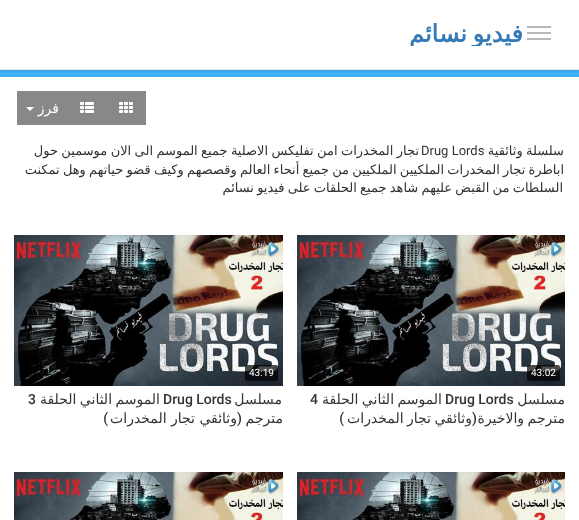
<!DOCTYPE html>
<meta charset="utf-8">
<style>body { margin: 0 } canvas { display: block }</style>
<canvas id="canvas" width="579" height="520"></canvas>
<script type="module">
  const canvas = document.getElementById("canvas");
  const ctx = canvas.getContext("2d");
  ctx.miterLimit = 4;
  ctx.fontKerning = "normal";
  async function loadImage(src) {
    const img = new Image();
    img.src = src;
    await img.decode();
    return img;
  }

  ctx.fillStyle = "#3db0f7";
  ctx.fillRect(0, 0, 579, 520);
  ctx.fillStyle = "rgba(0, 0, 0, 0.1)";
  ctx.filter = "blur(1px)";
  ctx.beginPath();
  ctx.rect(0, 1, 579, 70);
  ctx.fill();
  ctx.filter = "none";
  ctx.fillStyle = "#ffffff";
  ctx.fillRect(0, 0, 579, 69);
  ctx.fillStyle = "#e8e8e8";
  ctx.fillRect(0, 69, 579, 1);
  ctx.fillStyle = "#b8b8b8";
  ctx.fillRect(527, 32, 24, 2);
  ctx.fillRect(527, 26, 24, 2);
  ctx.fillRect(527, 38, 24, 2);
  ctx.save();
  ctx.beginPath();
  ctx.rect(408, 22, 115, 24);
  ctx.clip();
  ctx.wordSpacing = "-2px";
  ctx.direction = "rtl";
  ctx.font = "bold 24px DejaVu Sans";
  ctx.fillStyle = "#337ab7";
  ctx.fillText("فيديو نسائم", 523, 42);
  ctx.restore();
  ctx.fillStyle = "#ffffff";
  ctx.fillRect(0, 77, 579, 443);
  ctx.fillStyle = "#888888";
  ctx.fillRect(17, 91, 129, 34);
  ctx.drawImage(await loadImage("img1.png"), 80, 102, 14, 11);
  ctx.drawImage(await loadImage("img2.png"), 119, 102, 14, 11);
  ctx.direction = "rtl";
  ctx.font = "14px DejaVu Sans";
  ctx.fillStyle = "#ffffff";
  ctx.fillText("فرز", 59, 113);
  ctx.beginPath();
  ctx.moveTo(26, 107);
  ctx.lineTo(34, 107);
  ctx.lineTo(30, 111);
  ctx.closePath();
  ctx.fill();
  ctx.wordSpacing = "-0.9px";
  ctx.font = "13px DejaVu Sans";
  ctx.fillStyle = "#333333";
  ctx.fillText("سلسلة وثائقية", 564, 155);
  ctx.wordSpacing = "-0.75px";
  ctx.fillText("تجار المخدرات امن تفليكس الاصلية جميع الموسم الى الان موسمين حول", 419, 155);
  ctx.wordSpacing = "0px";
  ctx.direction = "ltr";
  ctx.font = "13px Roboto";
  ctx.fillText("Drug Lords", 421, 155);
  ctx.wordSpacing = "-0.9px";
  ctx.direction = "rtl";
  ctx.font = "13px DejaVu Sans";
  ctx.fillText("اباطرة تجار المخدرات الملكيين الملكيين من جميع أنحاء العالم وقصصهم وكيف قضو حياتهم وهل تمكنت", 564, 174);
  ctx.fillText("السلطات من القبض عليهم شاهد جميع الحلقات على فيديو نسائم", 563, 192);
  ctx.drawImage(await loadImage("img3.png"), 297, 235, 268, 151);
  ctx.fillStyle = "rgba(0, 0, 0, 0.7)";
  ctx.beginPath();
  ctx.roundRect(527, 365, 33, 16, 2);
  ctx.fill();
  ctx.wordSpacing = "0px";
  ctx.direction = "ltr";
  ctx.font = "10px Roboto";
  ctx.fillStyle = "#ffffff";
  ctx.fillText("43:02", 531, 376);
  ctx.direction = "rtl";
  ctx.font = "14px DejaVu Sans";
  ctx.fillStyle = "#333333";
  ctx.fillText("مسلسل", 565, 404);
  ctx.direction = "ltr";
  ctx.font = "500 14px Roboto";
  ctx.fillText("Drug Lords", 445, 404);
  ctx.wordSpacing = "-1px";
  ctx.direction = "rtl";
  ctx.font = "14px DejaVu Sans";
  ctx.fillText("الموسم الثاني الحلقة", 442, 404);
  ctx.wordSpacing = "0px";
  ctx.direction = "ltr";
  ctx.font = "500 14px Roboto";
  ctx.fillText("4", 310, 404);
  ctx.wordSpacing = "-1px";
  ctx.direction = "rtl";
  ctx.font = "14px DejaVu Sans";
  ctx.fillText("مترجم والاخيرة", 565, 423);
  ctx.wordSpacing = "0px";
  ctx.font = "500 14px Roboto";
  ctx.fillText("(", 477, 423);
  ctx.wordSpacing = "-1px";
  ctx.font = "14px DejaVu Sans";
  ctx.fillText("وثائقي تجار المخدرات", 472, 423);
  ctx.wordSpacing = "0px";
  ctx.font = "500 14px Roboto";
  ctx.fillText(")", 344, 423);
  ctx.drawImage(await loadImage("img4.png"), 14, 235, 269, 151);
  ctx.fillStyle = "rgba(0, 0, 0, 0.7)";
  ctx.beginPath();
  ctx.roundRect(245, 365, 33, 16, 2);
  ctx.fill();
  ctx.direction = "ltr";
  ctx.font = "10px Roboto";
  ctx.fillStyle = "#ffffff";
  ctx.fillText("43:19", 249, 376);
  ctx.direction = "rtl";
  ctx.font = "14px DejaVu Sans";
  ctx.fillStyle = "#333333";
  ctx.fillText("مسلسل", 282, 404);
  ctx.direction = "ltr";
  ctx.font = "500 14px Roboto";
  ctx.fillText("Drug Lords", 163, 404);
  ctx.wordSpacing = "-1px";
  ctx.direction = "rtl";
  ctx.font = "14px DejaVu Sans";
  ctx.fillText("الموسم الثاني الحلقة", 160, 404);
  ctx.wordSpacing = "0px";
  ctx.direction = "ltr";
  ctx.font = "500 14px Roboto";
  ctx.fillText("3", 28, 404);
  ctx.direction = "rtl";
  ctx.font = "14px DejaVu Sans";
  ctx.fillText("مترجم", 283, 423);
  ctx.font = "500 14px Roboto";
  ctx.fillText("(", 242, 423);
  ctx.font = "14px DejaVu Sans";
  ctx.fillText("وثائقي تجار المخدرات", 237, 423);
  ctx.font = "500 14px Roboto";
  ctx.fillText(")", 108, 423);
  ctx.drawImage(await loadImage("img5.png"), 297, 472, 268, 48);
  ctx.drawImage(await loadImage("img6.png"), 14, 472, 269, 48);
</script>
